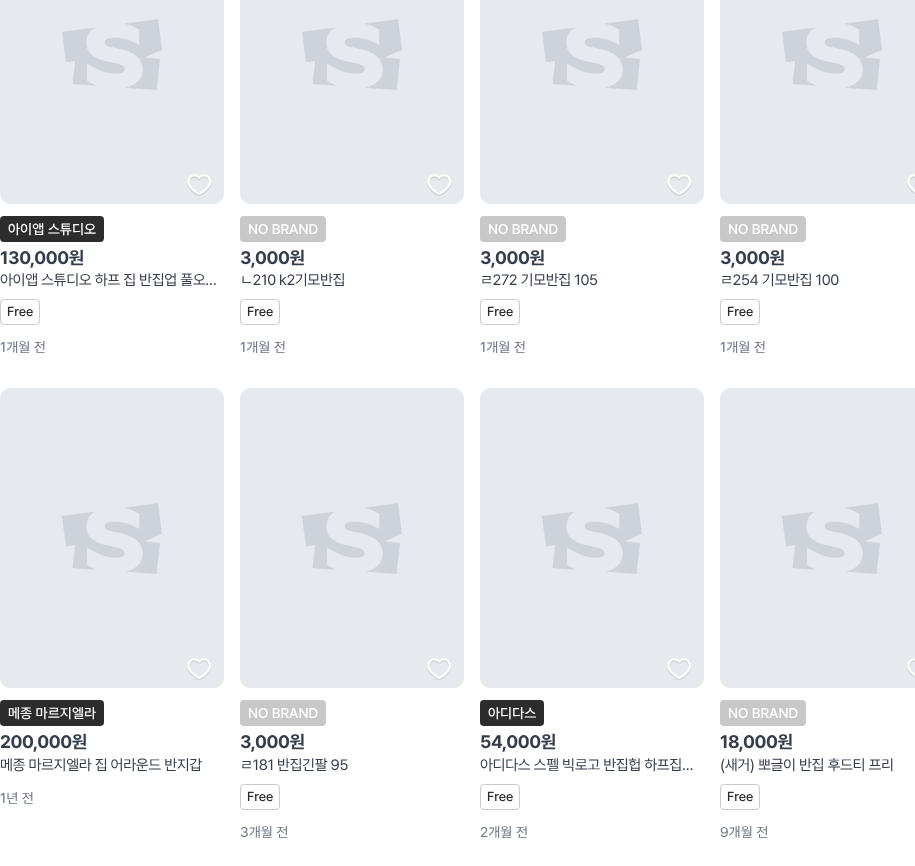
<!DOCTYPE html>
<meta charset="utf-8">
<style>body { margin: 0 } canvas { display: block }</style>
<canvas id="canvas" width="915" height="866"></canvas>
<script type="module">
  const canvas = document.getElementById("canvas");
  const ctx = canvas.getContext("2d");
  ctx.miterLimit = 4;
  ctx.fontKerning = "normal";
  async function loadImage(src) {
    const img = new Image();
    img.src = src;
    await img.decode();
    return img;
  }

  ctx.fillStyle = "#ffffff";
  ctx.fillRect(0, 0, 915, 866);
  ctx.drawImage(await loadImage("img1.png"), 0, 0, 224, 204);
  ctx.drawImage(await loadImage("img2.png"), 187, 174, 25, 22);
  ctx.fillStyle = "#2c2c2c";
  ctx.beginPath();
  ctx.roundRect(0, 216, 104, 26, 4);
  ctx.fill();
  ctx.font = "500 14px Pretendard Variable";
  ctx.fillStyle = "#ffffff";
  ctx.fillText("아이앱 스튜디오", 8, 234);
  ctx.letterSpacing = "-0.4px";
  ctx.font = "bold 18px Pretendard Variable";
  ctx.fillStyle = "#333d4b";
  ctx.fillText("130,000원", 0, 264);
  ctx.font = "15px Pretendard Variable";
  ctx.fillText("아이앱 스튜디오 하프 집 반집업 풀오…", 0, 285);
  ctx.beginPath();
  ctx.roundRect(0.5, 299.5, 39, 25, 3.5);
  ctx.strokeStyle = "#cacaca";
  ctx.stroke();
  ctx.letterSpacing = "0px";
  ctx.font = "500 13px Pretendard Variable";
  ctx.fillStyle = "#2c2c2c";
  ctx.fillText("Free", 7, 316);
  ctx.font = "14px Pretendard Variable";
  ctx.fillStyle = "#6b7684";
  ctx.fillText("1개월 전", 0, 352);
  ctx.drawImage(await loadImage("img1.png"), 240, 0, 224, 204);
  ctx.drawImage(await loadImage("img2.png"), 427, 174, 25, 22);
  ctx.fillStyle = "#c8c8c8";
  ctx.beginPath();
  ctx.roundRect(240, 216, 86, 26, 4);
  ctx.fill();
  ctx.font = "500 14px Pretendard Variable";
  ctx.fillStyle = "#ffffff";
  ctx.fillText("NO BRAND", 248, 234);
  ctx.letterSpacing = "-0.4px";
  ctx.font = "bold 18px Pretendard Variable";
  ctx.fillStyle = "#333d4b";
  ctx.fillText("3,000원", 240, 264);
  ctx.font = "15px Pretendard Variable";
  ctx.fillText("ㄴ210 k2기모반집", 240, 285);
  ctx.beginPath();
  ctx.roundRect(240.5, 299.5, 39, 25, 3.5);
  ctx.stroke();
  ctx.letterSpacing = "0px";
  ctx.font = "500 13px Pretendard Variable";
  ctx.fillStyle = "#2c2c2c";
  ctx.fillText("Free", 247, 316);
  ctx.font = "14px Pretendard Variable";
  ctx.fillStyle = "#6b7684";
  ctx.fillText("1개월 전", 240, 352);
  ctx.drawImage(await loadImage("img1.png"), 480, 0, 224, 204);
  ctx.drawImage(await loadImage("img2.png"), 667, 174, 25, 22);
  ctx.fillStyle = "#c8c8c8";
  ctx.beginPath();
  ctx.roundRect(480, 216, 86, 26, 4);
  ctx.fill();
  ctx.font = "500 14px Pretendard Variable";
  ctx.fillStyle = "#ffffff";
  ctx.fillText("NO BRAND", 488, 234);
  ctx.letterSpacing = "-0.4px";
  ctx.font = "bold 18px Pretendard Variable";
  ctx.fillStyle = "#333d4b";
  ctx.fillText("3,000원", 480, 264);
  ctx.font = "15px Pretendard Variable";
  ctx.fillText("ㄹ272 기모반집 105", 480, 285);
  ctx.beginPath();
  ctx.roundRect(480.5, 299.5, 39, 25, 3.5);
  ctx.stroke();
  ctx.letterSpacing = "0px";
  ctx.font = "500 13px Pretendard Variable";
  ctx.fillStyle = "#2c2c2c";
  ctx.fillText("Free", 487, 316);
  ctx.font = "14px Pretendard Variable";
  ctx.fillStyle = "#6b7684";
  ctx.fillText("1개월 전", 480, 352);
  ctx.drawImage(await loadImage("img3.png"), 720, 0, 195, 204);
  ctx.drawImage(await loadImage("img4.png"), 907, 174, 8, 20);
  ctx.fillStyle = "#c8c8c8";
  ctx.beginPath();
  ctx.roundRect(720, 216, 86, 26, 4);
  ctx.fill();
  ctx.font = "500 14px Pretendard Variable";
  ctx.fillStyle = "#ffffff";
  ctx.fillText("NO BRAND", 728, 234);
  ctx.letterSpacing = "-0.4px";
  ctx.font = "bold 18px Pretendard Variable";
  ctx.fillStyle = "#333d4b";
  ctx.fillText("3,000원", 720, 264);
  ctx.font = "15px Pretendard Variable";
  ctx.fillText("ㄹ254 기모반집 100", 720, 285);
  ctx.beginPath();
  ctx.roundRect(720.5, 299.5, 39, 25, 3.5);
  ctx.stroke();
  ctx.letterSpacing = "0px";
  ctx.font = "500 13px Pretendard Variable";
  ctx.fillStyle = "#2c2c2c";
  ctx.fillText("Free", 727, 316);
  ctx.font = "14px Pretendard Variable";
  ctx.fillStyle = "#6b7684";
  ctx.fillText("1개월 전", 720, 352);
  ctx.drawImage(await loadImage("img5.png"), 0, 388, 224, 300);
  ctx.drawImage(await loadImage("img2.png"), 187, 658, 25, 22);
  ctx.fillStyle = "#2c2c2c";
  ctx.beginPath();
  ctx.roundRect(0, 700, 104, 26, 4);
  ctx.fill();
  ctx.font = "500 14px Pretendard Variable";
  ctx.fillStyle = "#ffffff";
  ctx.fillText("메종 마르지엘라", 8, 718);
  ctx.letterSpacing = "-0.4px";
  ctx.font = "bold 18px Pretendard Variable";
  ctx.fillStyle = "#333d4b";
  ctx.fillText("200,000원", 0, 748);
  ctx.font = "15px Pretendard Variable";
  ctx.fillText("메종 마르지엘라 집 어라운드 반지갑", 0, 770);
  ctx.letterSpacing = "0px";
  ctx.font = "14px Pretendard Variable";
  ctx.fillStyle = "#6b7684";
  ctx.fillText("1년 전", 0, 803);
  ctx.drawImage(await loadImage("img5.png"), 240, 388, 224, 300);
  ctx.drawImage(await loadImage("img2.png"), 427, 658, 25, 22);
  ctx.fillStyle = "#c8c8c8";
  ctx.beginPath();
  ctx.roundRect(240, 700, 86, 26, 4);
  ctx.fill();
  ctx.font = "500 14px Pretendard Variable";
  ctx.fillStyle = "#ffffff";
  ctx.fillText("NO BRAND", 248, 718);
  ctx.letterSpacing = "-0.4px";
  ctx.font = "bold 18px Pretendard Variable";
  ctx.fillStyle = "#333d4b";
  ctx.fillText("3,000원", 240, 748);
  ctx.font = "15px Pretendard Variable";
  ctx.fillText("ㄹ181 반집긴팔 95", 240, 770);
  ctx.beginPath();
  ctx.roundRect(240.5, 784.5, 39, 25, 3.5);
  ctx.stroke();
  ctx.letterSpacing = "0px";
  ctx.font = "500 13px Pretendard Variable";
  ctx.fillStyle = "#2c2c2c";
  ctx.fillText("Free", 247, 801);
  ctx.font = "14px Pretendard Variable";
  ctx.fillStyle = "#6b7684";
  ctx.fillText("3개월 전", 240, 837);
  ctx.drawImage(await loadImage("img5.png"), 480, 388, 224, 300);
  ctx.drawImage(await loadImage("img2.png"), 667, 658, 25, 22);
  ctx.fillStyle = "#2c2c2c";
  ctx.beginPath();
  ctx.roundRect(480, 700, 64, 26, 4);
  ctx.fill();
  ctx.font = "500 14px Pretendard Variable";
  ctx.fillStyle = "#ffffff";
  ctx.fillText("아디다스", 488, 718);
  ctx.letterSpacing = "-0.4px";
  ctx.font = "bold 18px Pretendard Variable";
  ctx.fillStyle = "#333d4b";
  ctx.fillText("54,000원", 480, 748);
  ctx.font = "15px Pretendard Variable";
  ctx.fillText("아디다스 스펠 빅로고 반집헙 하프집…", 480, 770);
  ctx.beginPath();
  ctx.roundRect(480.5, 784.5, 39, 25, 3.5);
  ctx.stroke();
  ctx.letterSpacing = "0px";
  ctx.font = "500 13px Pretendard Variable";
  ctx.fillStyle = "#2c2c2c";
  ctx.fillText("Free", 487, 801);
  ctx.font = "14px Pretendard Variable";
  ctx.fillStyle = "#6b7684";
  ctx.fillText("2개월 전", 480, 837);
  ctx.drawImage(await loadImage("img6.png"), 720, 388, 195, 300);
  ctx.drawImage(await loadImage("img4.png"), 907, 658, 8, 20);
  ctx.fillStyle = "#c8c8c8";
  ctx.beginPath();
  ctx.roundRect(720, 700, 86, 26, 4);
  ctx.fill();
  ctx.font = "500 14px Pretendard Variable";
  ctx.fillStyle = "#ffffff";
  ctx.fillText("NO BRAND", 728, 718);
  ctx.letterSpacing = "-0.4px";
  ctx.font = "bold 18px Pretendard Variable";
  ctx.fillStyle = "#333d4b";
  ctx.fillText("18,000원", 720, 748);
  ctx.font = "15px Pretendard Variable";
  ctx.fillText("(새거) 뽀글이 반집 후드티 프리", 720, 770);
  ctx.beginPath();
  ctx.roundRect(720.5, 784.5, 39, 25, 3.5);
  ctx.stroke();
  ctx.letterSpacing = "0px";
  ctx.font = "500 13px Pretendard Variable";
  ctx.fillStyle = "#2c2c2c";
  ctx.fillText("Free", 727, 801);
  ctx.font = "14px Pretendard Variable";
  ctx.fillStyle = "#6b7684";
  ctx.fillText("9개월 전", 720, 837);
</script>
